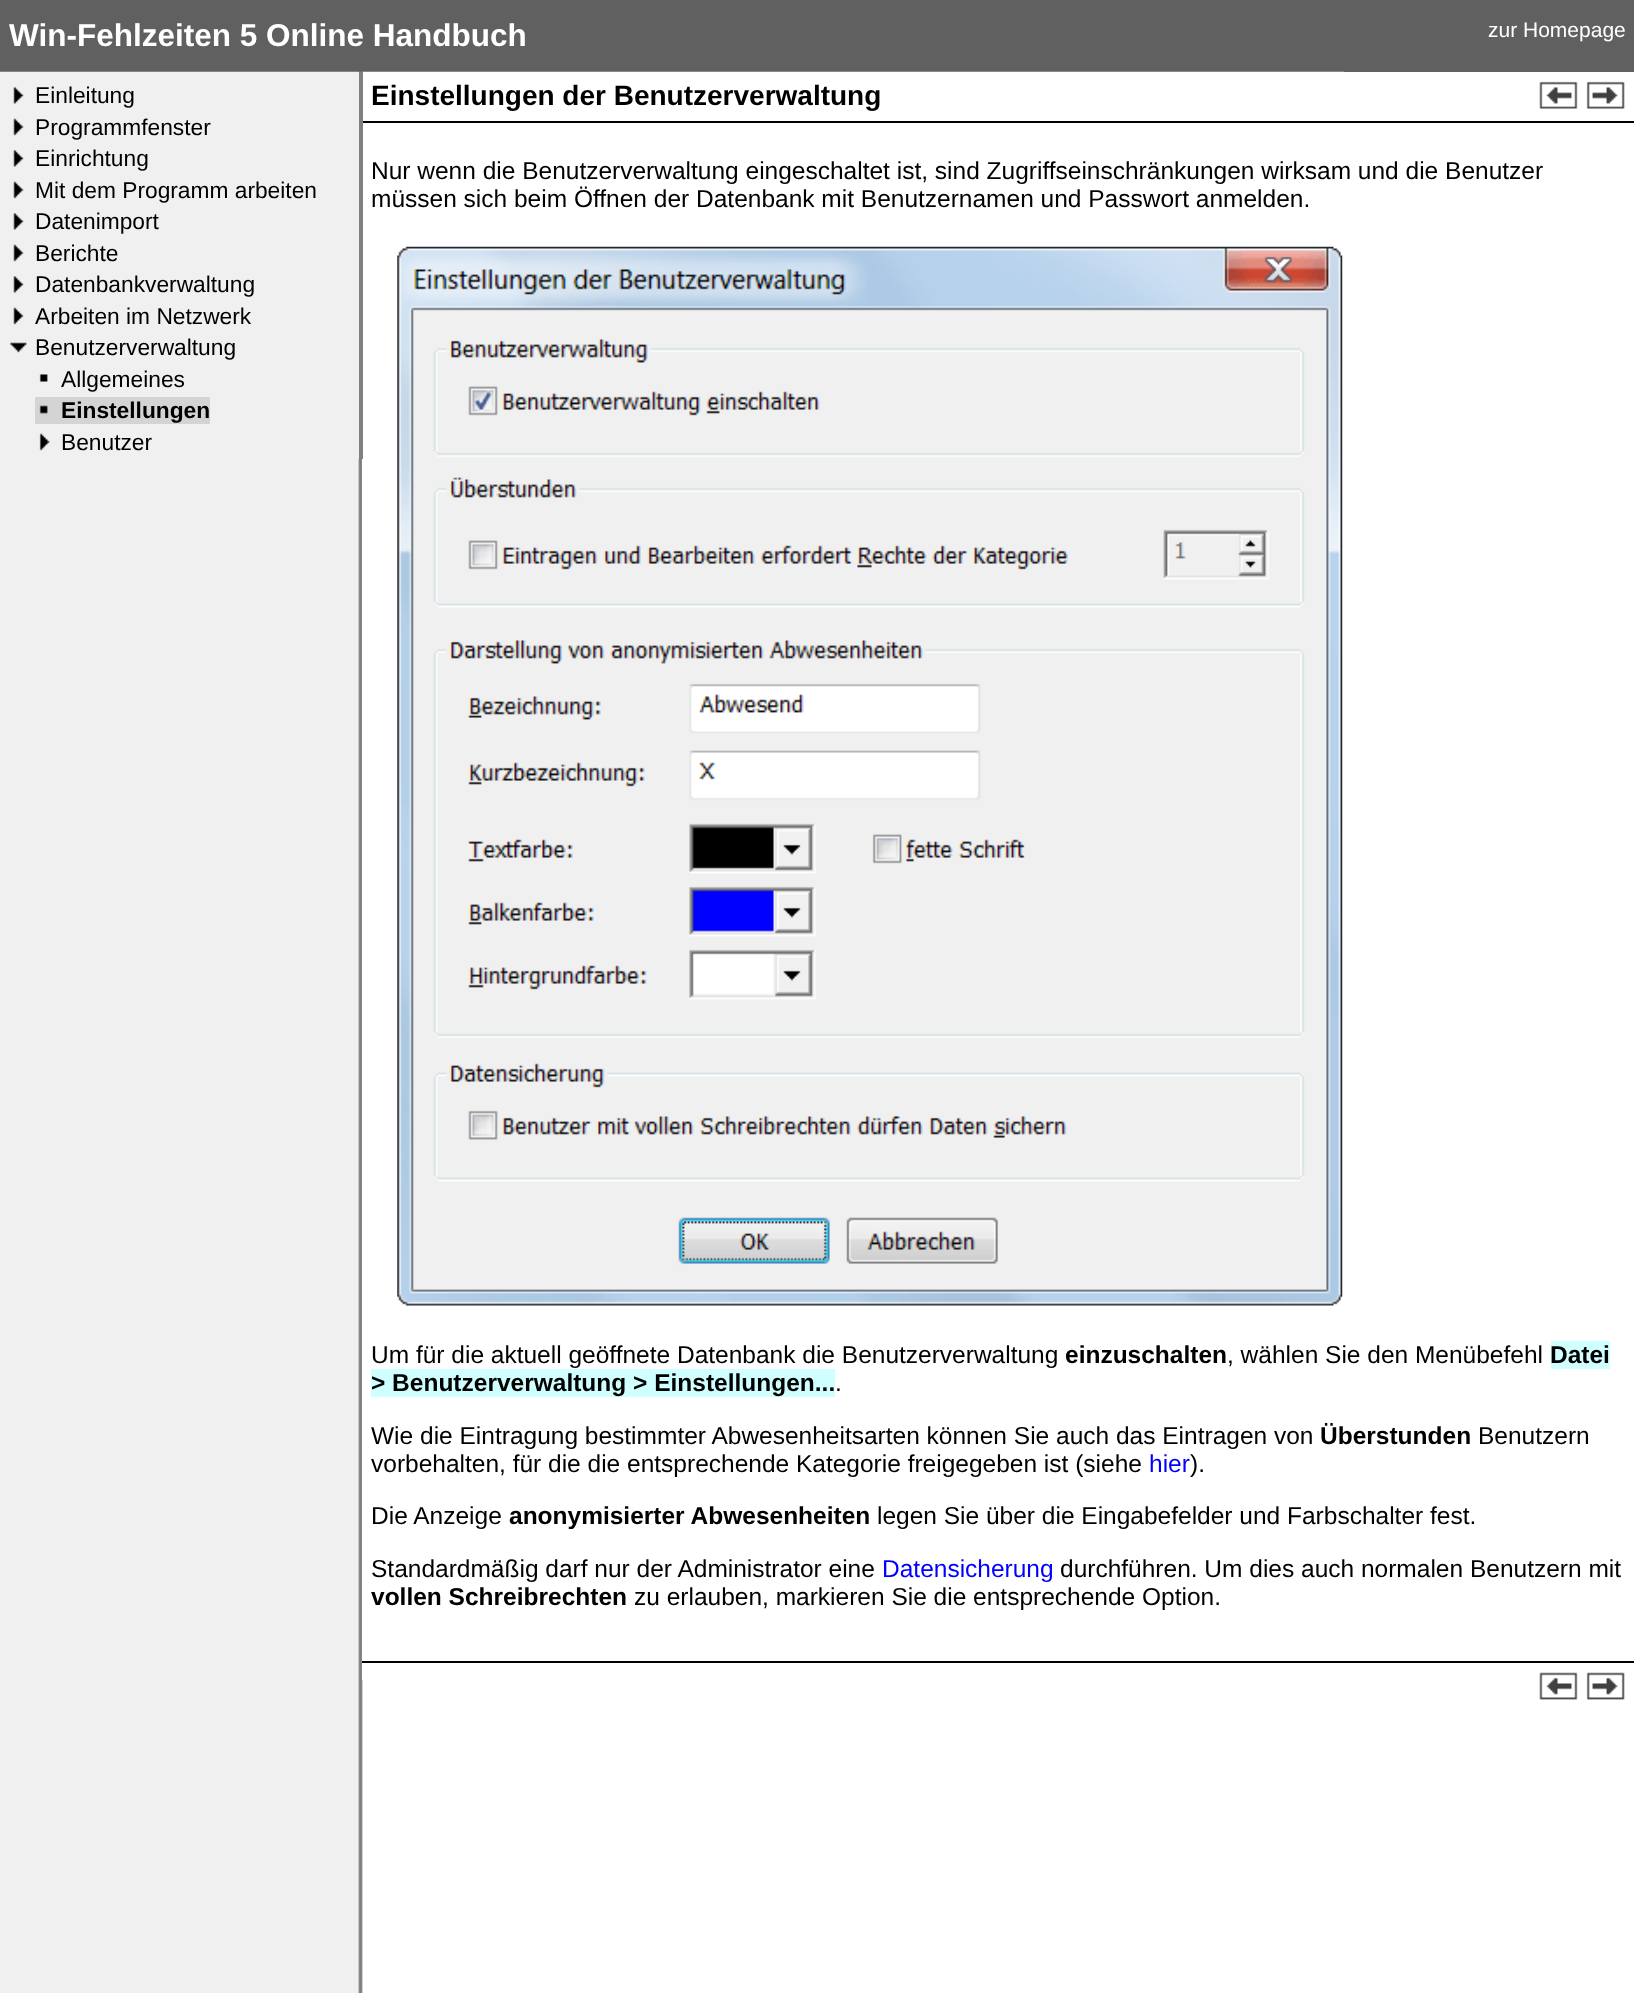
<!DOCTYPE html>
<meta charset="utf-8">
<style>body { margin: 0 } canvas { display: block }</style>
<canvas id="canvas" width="1634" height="1993"></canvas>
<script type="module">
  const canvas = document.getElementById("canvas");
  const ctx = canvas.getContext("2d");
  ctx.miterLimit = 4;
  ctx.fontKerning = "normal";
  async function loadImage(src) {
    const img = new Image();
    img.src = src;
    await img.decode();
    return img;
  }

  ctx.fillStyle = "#ffffff";
  ctx.fillRect(0, 0, 1634, 1993);
  ctx.drawImage(await loadImage("img1.png"), 0, 459, 363, 1534);
  ctx.fillStyle = "#606060";
  ctx.fillRect(0, 0, 1634, 72);
  ctx.font = "bold 31.5px Liberation Sans";
  ctx.fillStyle = "#ffffff";
  ctx.fillText("Win-Fehlzeiten 5 Online Handbuch", 9, 46);
  ctx.font = "21px Liberation Sans";
  ctx.fillText("zur Homepage", 1488, 37);
  ctx.drawImage(await loadImage("img2.png"), 0, 71, 1344, 1);
  ctx.fillStyle = "#f0f0f0";
  ctx.fillRect(0, 72, 359, 387);
  ctx.fillStyle = "#000000";
  ctx.fillRect(362, 121, 1272, 2);
  ctx.fillStyle = "#808080";
  ctx.fillRect(359, 72, 4, 387);
  ctx.drawImage(await loadImage("img3.png"), 13, 87, 11, 17);
  ctx.font = "22.75px Liberation Sans";
  ctx.fillStyle = "#000000";
  ctx.fillText("Einleitung", 35, 103);
  ctx.drawImage(await loadImage("img4.png"), 13, 118, 11, 18);
  ctx.fillText("Programmfenster", 35, 135);
  ctx.drawImage(await loadImage("img3.png"), 13, 150, 11, 17);
  ctx.fillText("Einrichtung", 35, 166);
  ctx.drawImage(await loadImage("img4.png"), 13, 181, 11, 18);
  ctx.fillText("Mit dem Programm arbeiten", 35, 198);
  ctx.drawImage(await loadImage("img5.png"), 13, 213, 11, 17);
  ctx.fillText("Datenimport", 35, 229);
  ctx.drawImage(await loadImage("img4.png"), 13, 244, 11, 18);
  ctx.fillText("Berichte", 35, 261);
  ctx.drawImage(await loadImage("img3.png"), 13, 276, 11, 17);
  ctx.fillText("Datenbankverwaltung", 35, 292);
  ctx.drawImage(await loadImage("img4.png"), 13, 307, 11, 18);
  ctx.fillText("Arbeiten im Netzwerk", 35, 324);
  ctx.drawImage(await loadImage("img6.png"), 10, 342, 17, 11);
  ctx.fillText("Benutzerverwaltung", 35, 355);
  ctx.drawImage(await loadImage("img7.png"), 39, 374, 9, 8);
  ctx.fillText("Allgemeines", 61, 387);
  ctx.fillStyle = "#d4d4d4";
  ctx.fillRect(35, 397, 175, 27);
  ctx.drawImage(await loadImage("img8.png"), 39, 405, 9, 9);
  ctx.font = "bold 22.75px Liberation Sans";
  ctx.fillStyle = "#000000";
  ctx.fillText("Einstellungen", 61, 418);
  ctx.drawImage(await loadImage("img9.png"), 39, 433, 11, 18);
  ctx.font = "22.75px Liberation Sans";
  ctx.fillText("Benutzer", 61, 450);
  ctx.fillStyle = "#ffffff";
  ctx.fillRect(362, 459, 1, 1221);
  ctx.font = "bold 28px Liberation Sans";
  ctx.fillStyle = "#000000";
  ctx.fillText("Einstellungen der Benutzerverwaltung", 371, 105);
  ctx.drawImage(await loadImage("img10.png"), 1539, 81, 39, 28);
  ctx.drawImage(await loadImage("img11.png"), 1586, 81, 39, 28);
  ctx.font = "24.5px Liberation Sans";
  ctx.fillText("Nur wenn die Benutzerverwaltung eingeschaltet ist, sind Zugriffseinschränkungen wirksam und die Benutzer", 371, 179);
  ctx.fillText("müssen sich beim Öffnen der Datenbank mit Benutzernamen und Passwort anmelden.", 371, 207);
  ctx.drawImage(await loadImage("img12.png"), 397, 246, 946, 1060);
  ctx.fillText("Um für die aktuell geöffnete Datenbank die Benutzerverwaltung", 371, 1363);
  ctx.font = "bold 24.5px Liberation Sans";
  ctx.fillText("einzuschalten", 1065, 1363);
  ctx.font = "24.5px Liberation Sans";
  ctx.fillText(", wählen Sie den Menübefehl", 1227, 1363);
  ctx.fillStyle = "#d0ffff";
  ctx.fillRect(1551, 1341, 59, 28);
  ctx.font = "bold 24.5px Liberation Sans";
  ctx.fillStyle = "#000000";
  ctx.fillText("Datei", 1550, 1363);
  ctx.fillStyle = "#d0ffff";
  ctx.fillRect(371, 1369, 464, 28);
  ctx.fillStyle = "#000000";
  ctx.fillText("> Benutzerverwaltung > Einstellungen...", 371, 1391);
  ctx.font = "24.5px Liberation Sans";
  ctx.fillText(".", 835, 1391);
  ctx.fillText("Wie die Eintragung bestimmter Abwesenheitsarten können Sie auch das Eintragen von", 371, 1444);
  ctx.font = "bold 24.5px Liberation Sans";
  ctx.fillText("Überstunden", 1320, 1444);
  ctx.font = "24.5px Liberation Sans";
  ctx.fillText("Benutzern", 1478, 1444);
  ctx.fillText("vorbehalten, für die die entsprechende Kategorie freigegeben ist (siehe", 371, 1472);
  ctx.fillStyle = "#0000ff";
  ctx.fillText("hier", 1149, 1472);
  ctx.fillStyle = "#000000";
  ctx.fillText(").", 1190, 1472);
  ctx.fillText("Die Anzeige", 371, 1524);
  ctx.font = "bold 24.5px Liberation Sans";
  ctx.fillText("anonymisierter Abwesenheiten", 509, 1524);
  ctx.font = "24.5px Liberation Sans";
  ctx.fillText("legen Sie über die Eingabefelder und Farbschalter fest.", 877, 1524);
  ctx.fillText("Standardmäßig darf nur der Administrator eine", 371, 1577);
  ctx.fillStyle = "#0000ff";
  ctx.fillText("Datensicherung", 882, 1577);
  ctx.fillStyle = "#000000";
  ctx.fillText("durchführen. Um dies auch normalen Benutzern mit", 1060, 1577);
  ctx.font = "bold 24.5px Liberation Sans";
  ctx.fillText("vollen Schreibrechten", 371, 1605);
  ctx.font = "24.5px Liberation Sans";
  ctx.fillText("zu erlauben, markieren Sie die entsprechende Option.", 634, 1605);
  ctx.fillRect(362, 1661, 1272, 2);
  ctx.drawImage(await loadImage("img13.png"), 1539, 1672, 39, 28);
  ctx.drawImage(await loadImage("img14.png"), 1586, 1672, 39, 28);
</script>
